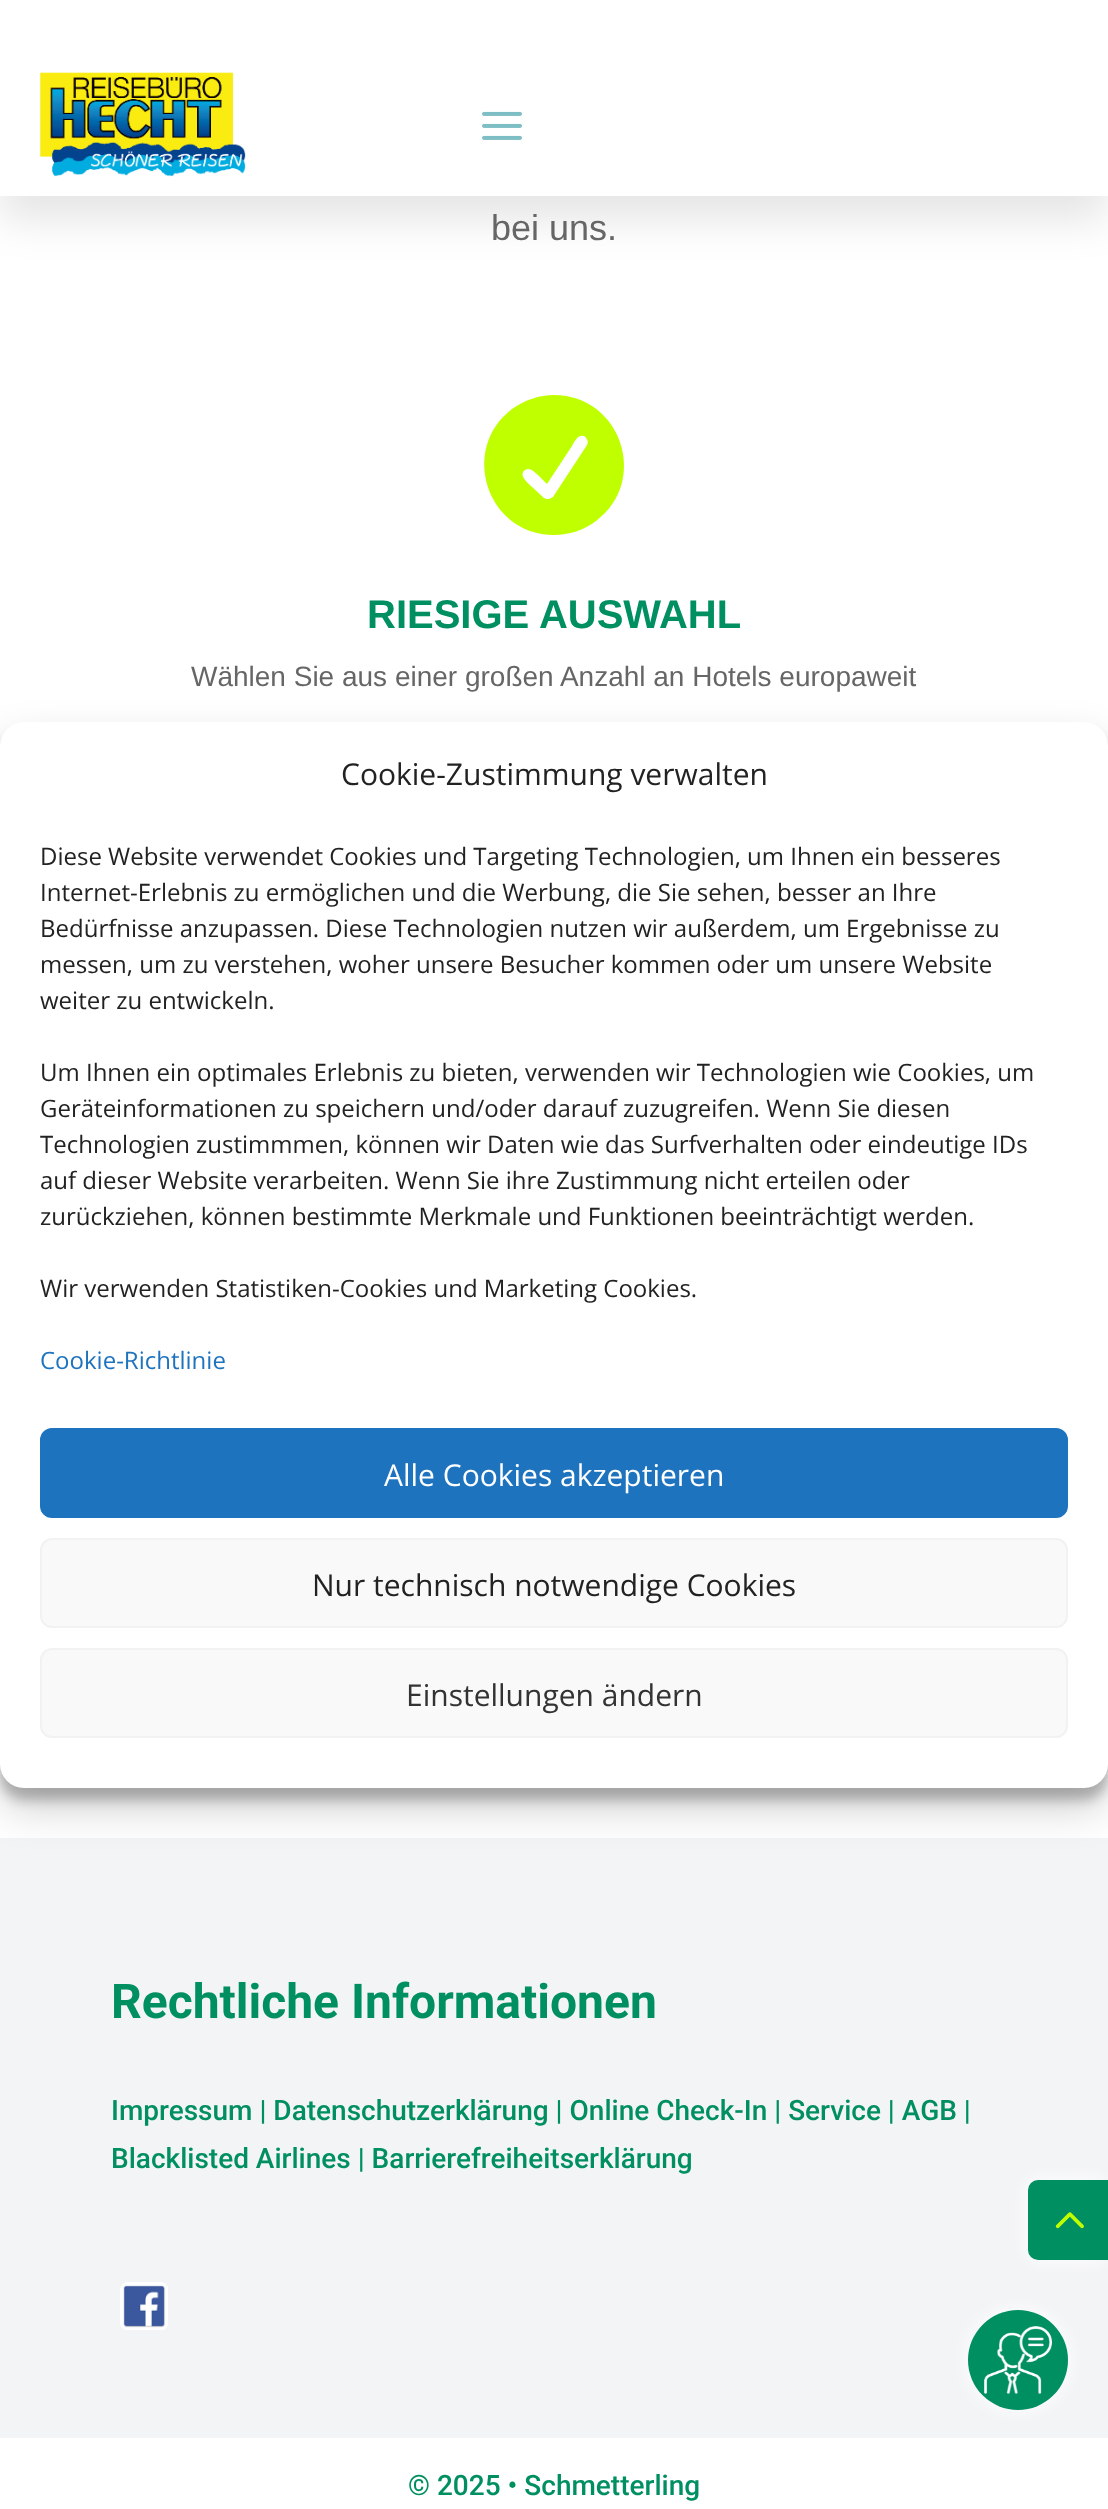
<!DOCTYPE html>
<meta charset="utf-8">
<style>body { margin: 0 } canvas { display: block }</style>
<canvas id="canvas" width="1108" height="2509"></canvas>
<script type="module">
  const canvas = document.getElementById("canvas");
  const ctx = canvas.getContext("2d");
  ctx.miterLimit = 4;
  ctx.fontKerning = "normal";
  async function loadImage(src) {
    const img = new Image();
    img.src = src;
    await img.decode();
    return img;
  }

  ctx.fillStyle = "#ffffff";
  ctx.fillRect(0, 0, 1108, 2509);
  ctx.fillStyle = "rgba(0, 0, 0, 0.1)";
  ctx.filter = "blur(20px)";
  ctx.beginPath();
  ctx.rect(0, 24, 1108, 196);
  ctx.fill();
  ctx.filter = "none";
  ctx.fillStyle = "#ffffff";
  ctx.fillRect(0, 0, 1108, 196);
  ctx.drawImage(await loadImage("img1.png"), 40, 72, 206, 105);
  ctx.drawImage(await loadImage("img2.png"), 482, 111, 40, 29);
  ctx.font = "36px Liberation Sans";
  ctx.fillStyle = "#666666";
  ctx.fillText("bei uns.", 491, 240);
  ctx.fillStyle = "#bfff00";
  ctx.beginPath();
  ctx.moveTo(554, 395);
  ctx.bezierCurveTo(539, 395, 525, 400, 512, 409);
  ctx.bezierCurveTo(459, 449, 487, 535, 554, 535);
  ctx.bezierCurveTo(569, 535, 584, 530, 596, 521);
  ctx.bezierCurveTo(650, 481, 621, 395, 554, 395);
  ctx.closePath();
  ctx.moveTo(587, 445);
  ctx.lineTo(553, 497);
  ctx.lineTo(551, 498);
  ctx.lineTo(549, 499);
  ctx.bezierCurveTo(547, 499, 546, 499, 544, 498);
  ctx.lineTo(531, 486);
  ctx.bezierCurveTo(528, 483, 518, 475, 525, 470);
  ctx.bezierCurveTo(530, 467, 534, 472, 538, 475);
  ctx.lineTo(547, 484);
  ctx.lineTo(572, 446);
  ctx.bezierCurveTo(574, 442, 578, 434, 584, 436);
  ctx.bezierCurveTo(587, 438, 589, 442, 587, 445);
  ctx.closePath();
  ctx.fill();
  ctx.font = "bold 40px Liberation Sans";
  ctx.fillStyle = "#008f60";
  ctx.fillText("RIESIGE AUSWAHL", 367, 628);
  ctx.font = "28px Liberation Sans";
  ctx.fillStyle = "#666666";
  ctx.fillText("Wählen Sie aus einer großen Anzahl an Hotels europaweit", 191, 686);
  ctx.fillStyle = "#f3f4f6";
  ctx.fillRect(0, 1838, 1108, 600);
  ctx.font = "bold 48px Roboto";
  ctx.fillStyle = "#008f60";
  ctx.fillText("Rechtliche Informationen", 111, 2018);
  ctx.font = "500 28px Roboto";
  ctx.fillText("Impressum | Datenschutzerklärung | Online Check-In | Service | AGB |", 111, 2120);
  ctx.fillText("Blacklisted Airlines | Barrierefreiheitserklärung", 111, 2168);
  ctx.drawImage(await loadImage("img3.png"), 120, 2282, 48, 48);
  ctx.fillStyle = "#ffffff";
  ctx.filter = "blur(10px)";
  ctx.beginPath();
  ctx.roundRect(968, 2310, 100, 100, 50);
  ctx.fill();
  ctx.filter = "none";
  ctx.fillStyle = "#008f60";
  ctx.beginPath();
  ctx.arc(1018, 2360, 50, 0, Math.PI * 2);
  ctx.fill();
  ctx.drawImage(await loadImage("img4.png"), 984, 2326, 68, 68);
  ctx.fillText("© 2025 • Schmetterling", 408, 2495);
  ctx.fillStyle = "rgba(0, 0, 0, 0.23)";
  ctx.filter = "blur(6px)";
  ctx.beginPath();
  ctx.roundRect(0, 734, 1108, 1066, 24);
  ctx.fill();
  ctx.filter = "none";
  ctx.fillStyle = "rgba(0, 0, 0, 0.19)";
  ctx.filter = "blur(20px)";
  ctx.beginPath();
  ctx.roundRect(0, 742, 1108, 1066, 24);
  ctx.fill();
  ctx.filter = "none";
  ctx.fillStyle = "#ffffff";
  ctx.beginPath();
  ctx.roundRect(0, 722, 1108, 1066, 24);
  ctx.fill();
  ctx.font = "30px Open Sans";
  ctx.fillStyle = "#222222";
  ctx.fillText("Cookie-Zustimmung verwalten", 341, 785);
  ctx.font = "24px Open Sans";
  ctx.fillText("Diese Website verwendet Cookies und Targeting Technologien, um Ihnen ein besseres", 40, 865);
  ctx.fillText("Internet-Erlebnis zu ermöglichen und die Werbung, die Sie sehen, besser an Ihre", 40, 901);
  ctx.fillText("Bedürfnisse anzupassen. Diese Technologien nutzen wir außerdem, um Ergebnisse zu", 40, 937);
  ctx.fillText("messen, um zu verstehen, woher unsere Besucher kommen oder um unsere Website", 40, 973);
  ctx.fillText("weiter zu entwickeln.", 40, 1009);
  ctx.fillText("Um Ihnen ein optimales Erlebnis zu bieten, verwenden wir Technologien wie Cookies, um", 40, 1081);
  ctx.fillText("Geräteinformationen zu speichern und/oder darauf zuzugreifen. Wenn Sie diesen", 40, 1117);
  ctx.fillText("Technologien zustimmmen, können wir Daten wie das Surfverhalten oder eindeutige IDs", 40, 1153);
  ctx.fillText("auf dieser Website verarbeiten. Wenn Sie ihre Zustimmung nicht erteilen oder", 40, 1189);
  ctx.fillText("zurückziehen, können bestimmte Merkmale und Funktionen beeinträchtigt werden.", 40, 1225);
  ctx.fillText("Wir verwenden Statistiken-Cookies und Marketing Cookies.", 40, 1297);
  ctx.fillStyle = "#1e73be";
  ctx.fillText("Cookie-Richtlinie", 40, 1369);
  ctx.beginPath();
  ctx.roundRect(41, 1429, 1026, 88, 11);
  ctx.fill();
  ctx.strokeStyle = "#1e73be";
  ctx.lineWidth = 2;
  ctx.stroke();
  ctx.font = "30px Open Sans";
  ctx.fillStyle = "#ffffff";
  ctx.fillText("Alle Cookies akzeptieren", 384, 1486);
  ctx.fillStyle = "#f9f9f9";
  ctx.beginPath();
  ctx.roundRect(41, 1539, 1026, 88, 11);
  ctx.fill();
  ctx.strokeStyle = "#f2f2f2";
  ctx.stroke();
  ctx.fillStyle = "#222222";
  ctx.fillText("Nur technisch notwendige Cookies", 312, 1596);
  ctx.fillStyle = "#f9f9f9";
  ctx.beginPath();
  ctx.roundRect(41, 1649, 1026, 88, 11);
  ctx.fill();
  ctx.stroke();
  ctx.fillStyle = "#333333";
  ctx.fillText("Einstellungen ändern", 406, 1706);
  ctx.fillStyle = "#ffffff";
  ctx.filter = "blur(10px)";
  ctx.beginPath();
  ctx.roundRect(1028, 2180, 80, 80, 10);
  ctx.fill();
  ctx.filter = "none";
  ctx.fillStyle = "#008f60";
  ctx.beginPath();
  ctx.roundRect(1028, 2180, 80, 80, [10, 0, 0, 10]);
  ctx.fill();
  ctx.drawImage(await loadImage("img5.png"), 1055, 2212, 29, 17);
</script>
